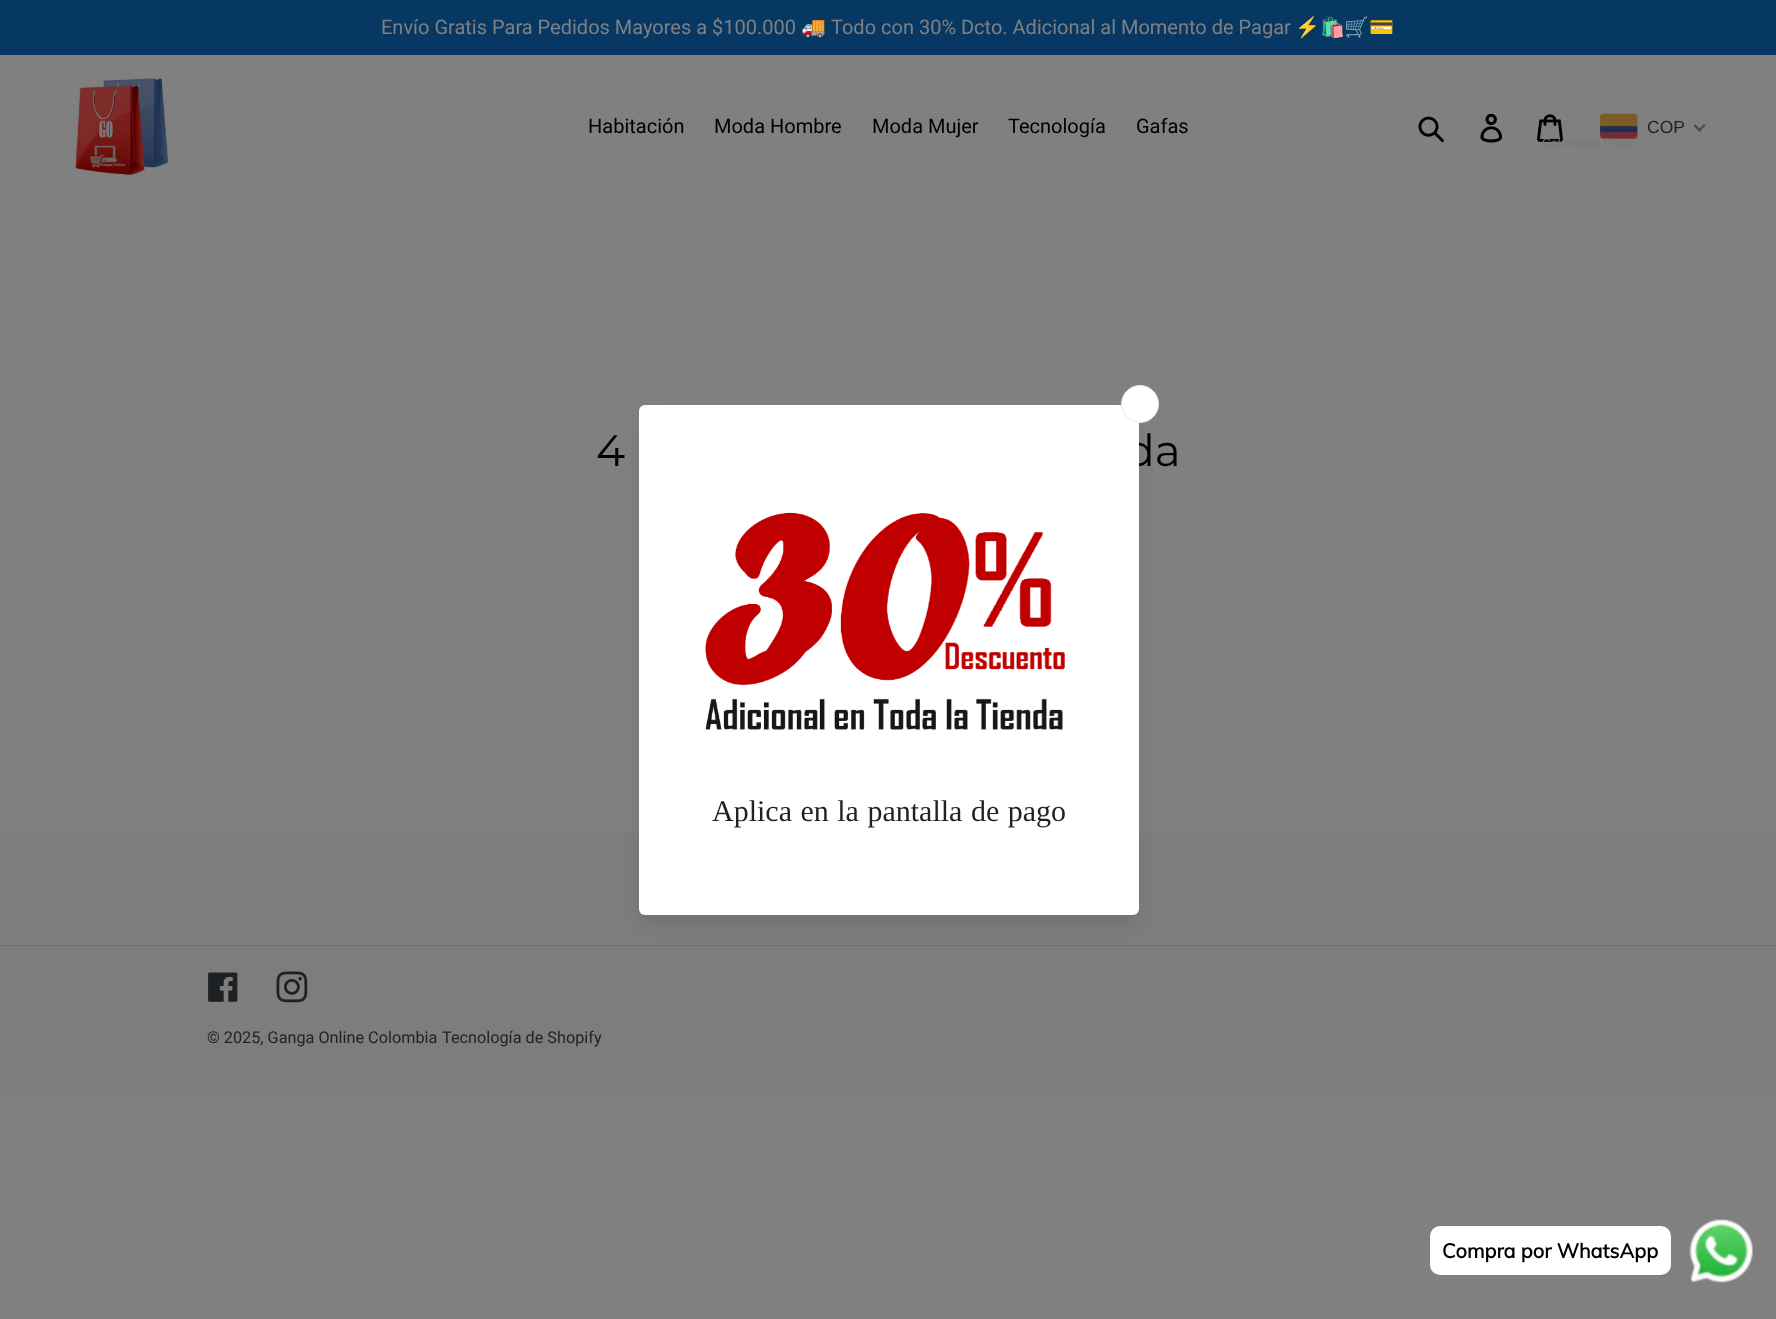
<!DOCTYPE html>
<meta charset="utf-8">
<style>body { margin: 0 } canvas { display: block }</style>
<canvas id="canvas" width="1776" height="1319"></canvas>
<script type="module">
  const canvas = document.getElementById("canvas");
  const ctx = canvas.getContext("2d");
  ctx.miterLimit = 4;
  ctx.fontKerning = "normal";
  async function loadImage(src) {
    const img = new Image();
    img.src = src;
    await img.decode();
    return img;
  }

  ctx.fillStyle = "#808080";
  ctx.fillRect(0, 0, 1776, 1319);
  ctx.fillStyle = "#073863";
  ctx.fillRect(0, 0, 1776, 55);
  ctx.font = "20px Roboto";
  ctx.fillStyle = "#808080";
  ctx.fillText("Envío Gratis Para Pedidos Mayores a $100.000", 381, 34);
  ctx.font = "20px Noto Color Emoji";
  ctx.fillText("🚚", 801, 34);
  ctx.font = "20px Roboto";
  ctx.fillText("Todo con 30% Dcto. Adicional al Momento de Pagar", 831, 34);
  ctx.font = "20px Noto Color Emoji";
  ctx.fillText("⚡🛍️🛒💳", 1295, 34);
  ctx.drawImage(await loadImage("img1.png"), 75, 78, 94, 99);
  ctx.font = "20px Roboto";
  ctx.fillStyle = "#000000";
  ctx.fillText("Habitación", 588, 133);
  ctx.fillText("Moda Hombre", 714, 133);
  ctx.fillText("Moda Mujer", 872, 133);
  ctx.fillText("Tecnología", 1008, 133);
  ctx.fillText("Gafas", 1136, 133);
  ctx.drawImage(await loadImage("img2.png"), 1418, 116, 26, 27);
  ctx.drawImage(await loadImage("img3.png"), 1480, 114, 22, 29);
  ctx.drawImage(await loadImage("img4.png"), 1537, 114, 26, 28);
  ctx.drawImage(await loadImage("img5.png"), 1600, 113, 38, 26);
  ctx.font = "17.5px Liberation Sans";
  ctx.fillStyle = "#1f2123";
  ctx.fillText("COP", 1647, 133);
  ctx.fillStyle = "#4d4d4d";
  ctx.beginPath();
  ctx.moveTo(1704, 124);
  ctx.lineTo(1705.5, 125.5);
  ctx.lineTo(1699.5, 132);
  ctx.lineTo(1698, 130);
  ctx.closePath();
  ctx.fill();
  ctx.beginPath();
  ctx.moveTo(1695, 124);
  ctx.lineTo(1701.5, 130);
  ctx.lineTo(1699.5, 132);
  ctx.lineTo(1693.5, 125.5);
  ctx.closePath();
  ctx.fill();
  ctx.font = "12.25px Liberation Sans";
  ctx.fillStyle = "#777777";
  ctx.fillText("Colombian Peso", 1542, 147);
  ctx.font = "44px Montserrat";
  ctx.fillStyle = "#000000";
  ctx.fillText("4", 596, 466);
  ctx.fillText("da", 1125, 466);
  ctx.fillStyle = "#7d7d7d";
  ctx.fillRect(0, 833, 1776, 262);
  ctx.fillStyle = "#717171";
  ctx.fillRect(0, 945, 1776, 1);
  ctx.drawImage(await loadImage("img6.png"), 208, 972, 30, 30);
  ctx.drawImage(await loadImage("img7.png"), 276, 971, 32, 32);
  ctx.font = "16.25px Roboto";
  ctx.fillStyle = "#1f2123";
  ctx.fillText("© 2025, Ganga Online Colombia", 207, 1043);
  ctx.fillText("Tecnología de Shopify", 442, 1043);
  ctx.fillStyle = "rgba(0, 0, 0, 0.1)";
  ctx.filter = "blur(9.5px)";
  ctx.beginPath();
  ctx.roundRect(643, 421, 492, 503, 2.5);
  ctx.fill();
  ctx.filter = "none";
  ctx.save();
  ctx.beginPath();
  ctx.rect(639, 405, 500, 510);
  ctx.clip();
  ctx.fillStyle = "rgba(0, 0, 0, 0.12)";
  ctx.filter = "blur(12.5px)";
  ctx.beginPath();
  ctx.roundRect(643, 409, 492, 502, 2.5);
  ctx.fill();
  ctx.filter = "none";
  ctx.restore();
  ctx.fillStyle = "#ffffff";
  ctx.beginPath();
  ctx.roundRect(639, 405, 500, 510, 6);
  ctx.fill();
  ctx.beginPath();
  ctx.arc(1140, 404, 18.5, 0, Math.PI * 2);
  ctx.fill();
  ctx.strokeStyle = "#e2e8f0";
  ctx.stroke();
  ctx.drawImage(await loadImage("img8.png"), 705, 512, 360, 218);
  ctx.wordSpacing = "1px";
  ctx.font = "30px Liberation Serif";
  ctx.fillStyle = "#1f2123";
  ctx.fillText("Aplica en la pantalla de pago", 712, 821);
  ctx.drawImage(await loadImage("img9.png"), 1689, 1219, 64, 64);
  ctx.fillStyle = "#ffffff";
  ctx.beginPath();
  ctx.roundRect(1430, 1226, 241, 49, 10);
  ctx.fill();
  ctx.wordSpacing = "0px";
  ctx.font = "bold 20px Muli";
  ctx.fillStyle = "#000000";
  ctx.fillText("Compra por WhatsApp", 1442, 1258);
</script>
